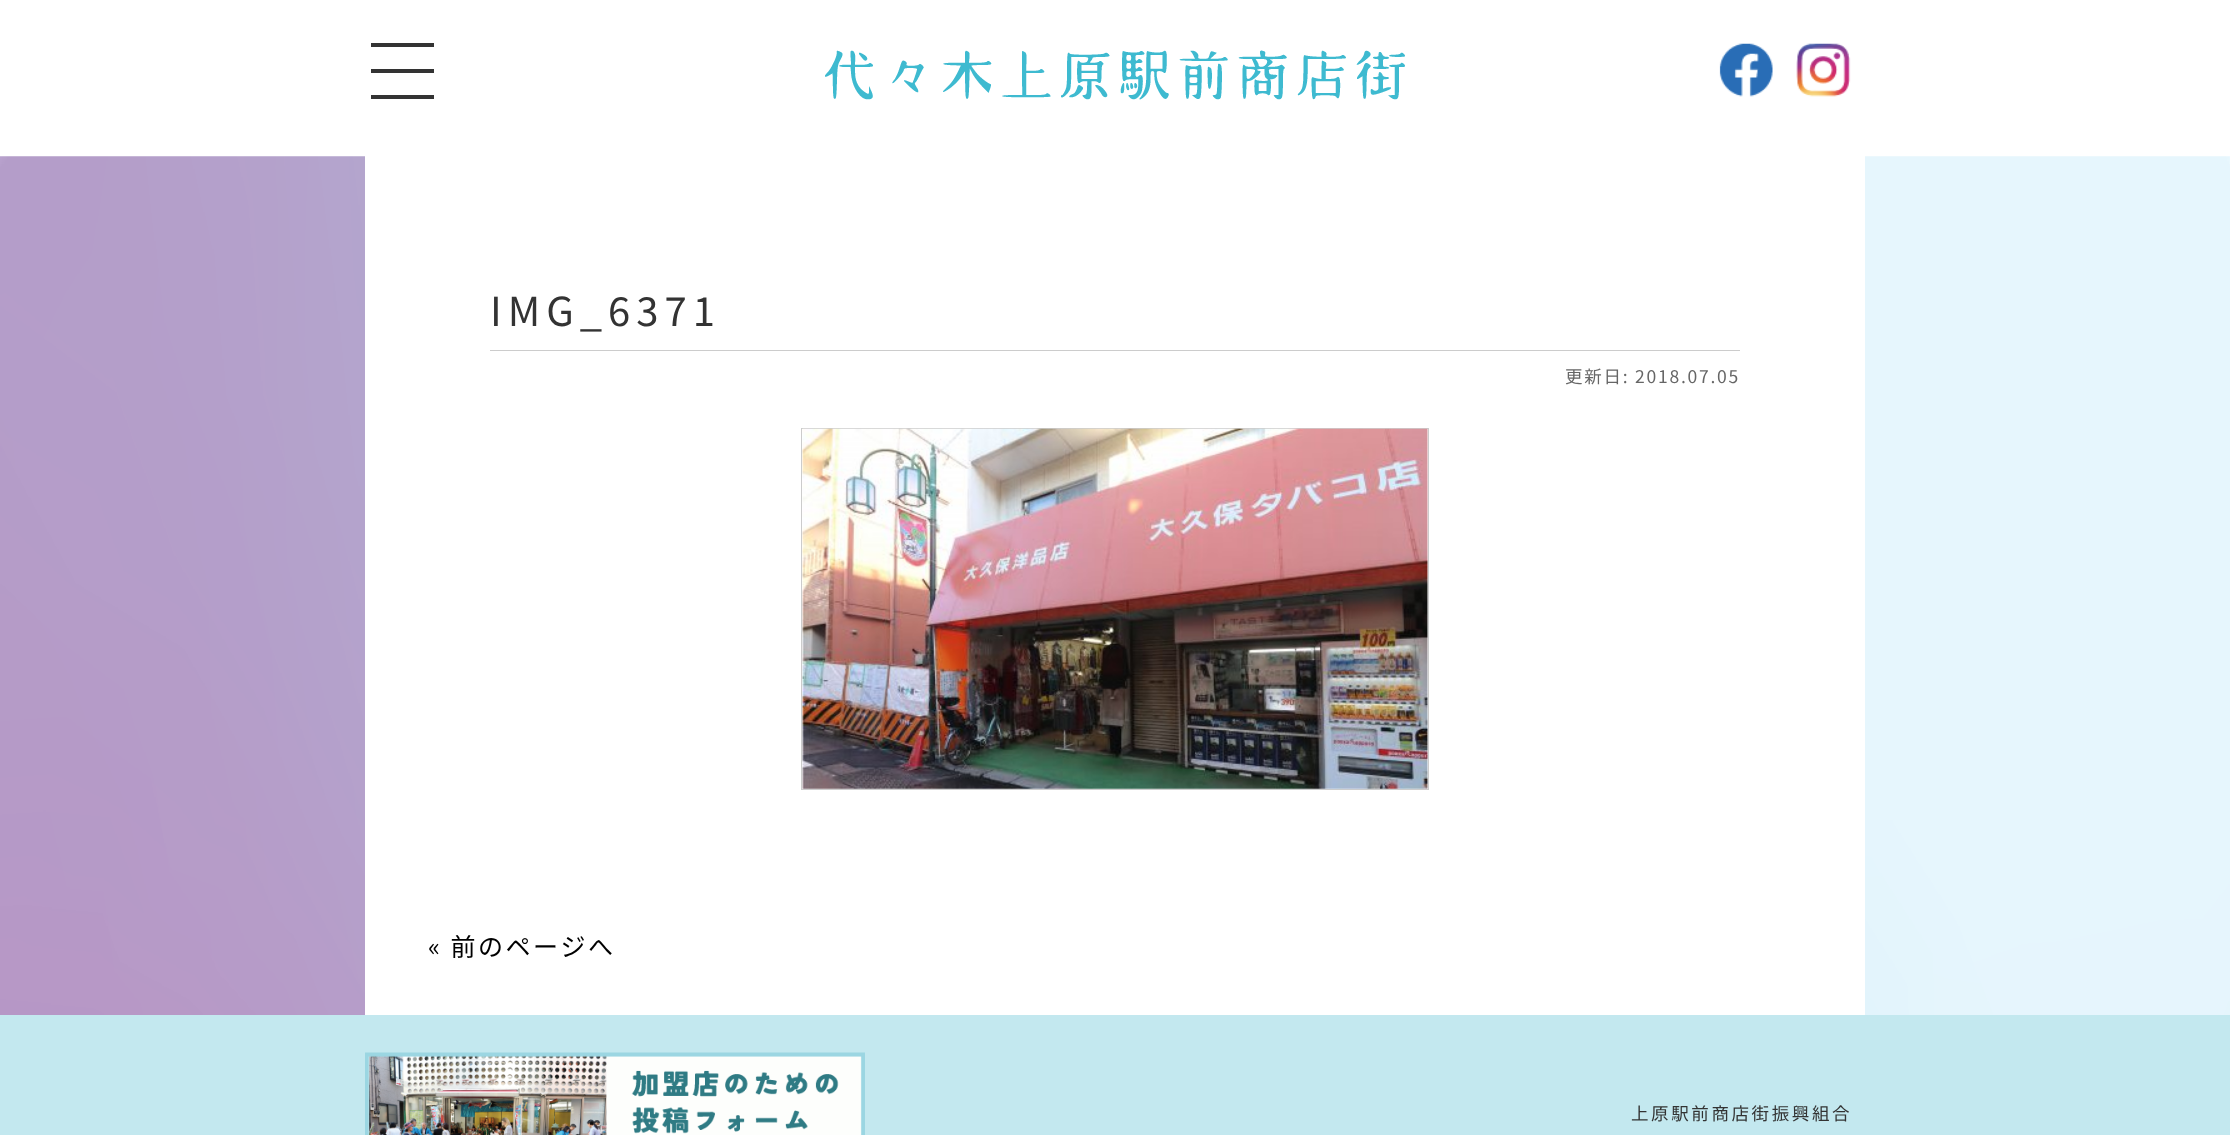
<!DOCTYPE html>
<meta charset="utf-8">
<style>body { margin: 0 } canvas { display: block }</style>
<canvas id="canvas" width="2230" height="1135"></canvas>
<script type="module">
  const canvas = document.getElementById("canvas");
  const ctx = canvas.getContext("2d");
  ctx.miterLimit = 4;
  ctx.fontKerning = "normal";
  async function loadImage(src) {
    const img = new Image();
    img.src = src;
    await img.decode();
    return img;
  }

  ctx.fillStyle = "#ffffff";
  ctx.fillRect(0, 0, 2230, 1135);
  ctx.fillStyle = "#333333";
  ctx.fillRect(371, 43, 63, 4);
  ctx.fillRect(371, 69, 63, 4);
  ctx.fillRect(371, 95, 63, 4);
  ctx.drawImage(await loadImage("img1.png"), 825, 50, 580, 50);
  ctx.drawImage(await loadImage("img2.png"), 1719, 43, 54, 54);
  ctx.drawImage(await loadImage("img3.png"), 1796, 43, 55, 54);
  ctx.drawImage(await loadImage("img4.png"), 0, 156, 2230, 859);
  ctx.fillStyle = "#ffffff";
  ctx.fillRect(365, 156, 1500, 859);
  ctx.fillStyle = "#cccccc";
  ctx.fillRect(490, 350, 1250, 1);
  ctx.letterSpacing = "6px";
  ctx.font = "40px Noto Sans JP";
  ctx.fillStyle = "#333333";
  ctx.fillText("IMG_6371", 490, 326);
  ctx.letterSpacing = "1.75px";
  ctx.font = "17.5px Noto Sans JP";
  ctx.fillStyle = "#666666";
  ctx.fillText("更新日: 2018.07.05", 1565, 383);
  ctx.strokeStyle = "#cccccc";
  ctx.strokeRect(801.5, 428.5, 627, 361);
  ctx.drawImage(await loadImage("img5.png"), 802, 428, 626, 361);
  ctx.letterSpacing = "2.5px";
  ctx.font = "25px Noto Sans JP";
  ctx.fillStyle = "#000000";
  ctx.fillText("« 前のページへ", 428, 956);
  ctx.fillStyle = "#c3e8ef";
  ctx.fillRect(0, 1015, 2230, 120);
  ctx.drawImage(await loadImage("img6.png"), 365, 1052, 500, 83);
  ctx.letterSpacing = "2.6px";
  ctx.font = "17.5px Noto Sans JP";
  ctx.fillStyle = "#333333";
  ctx.fillText("上原駅前商店街振興組合", 1631, 1120);
</script>
